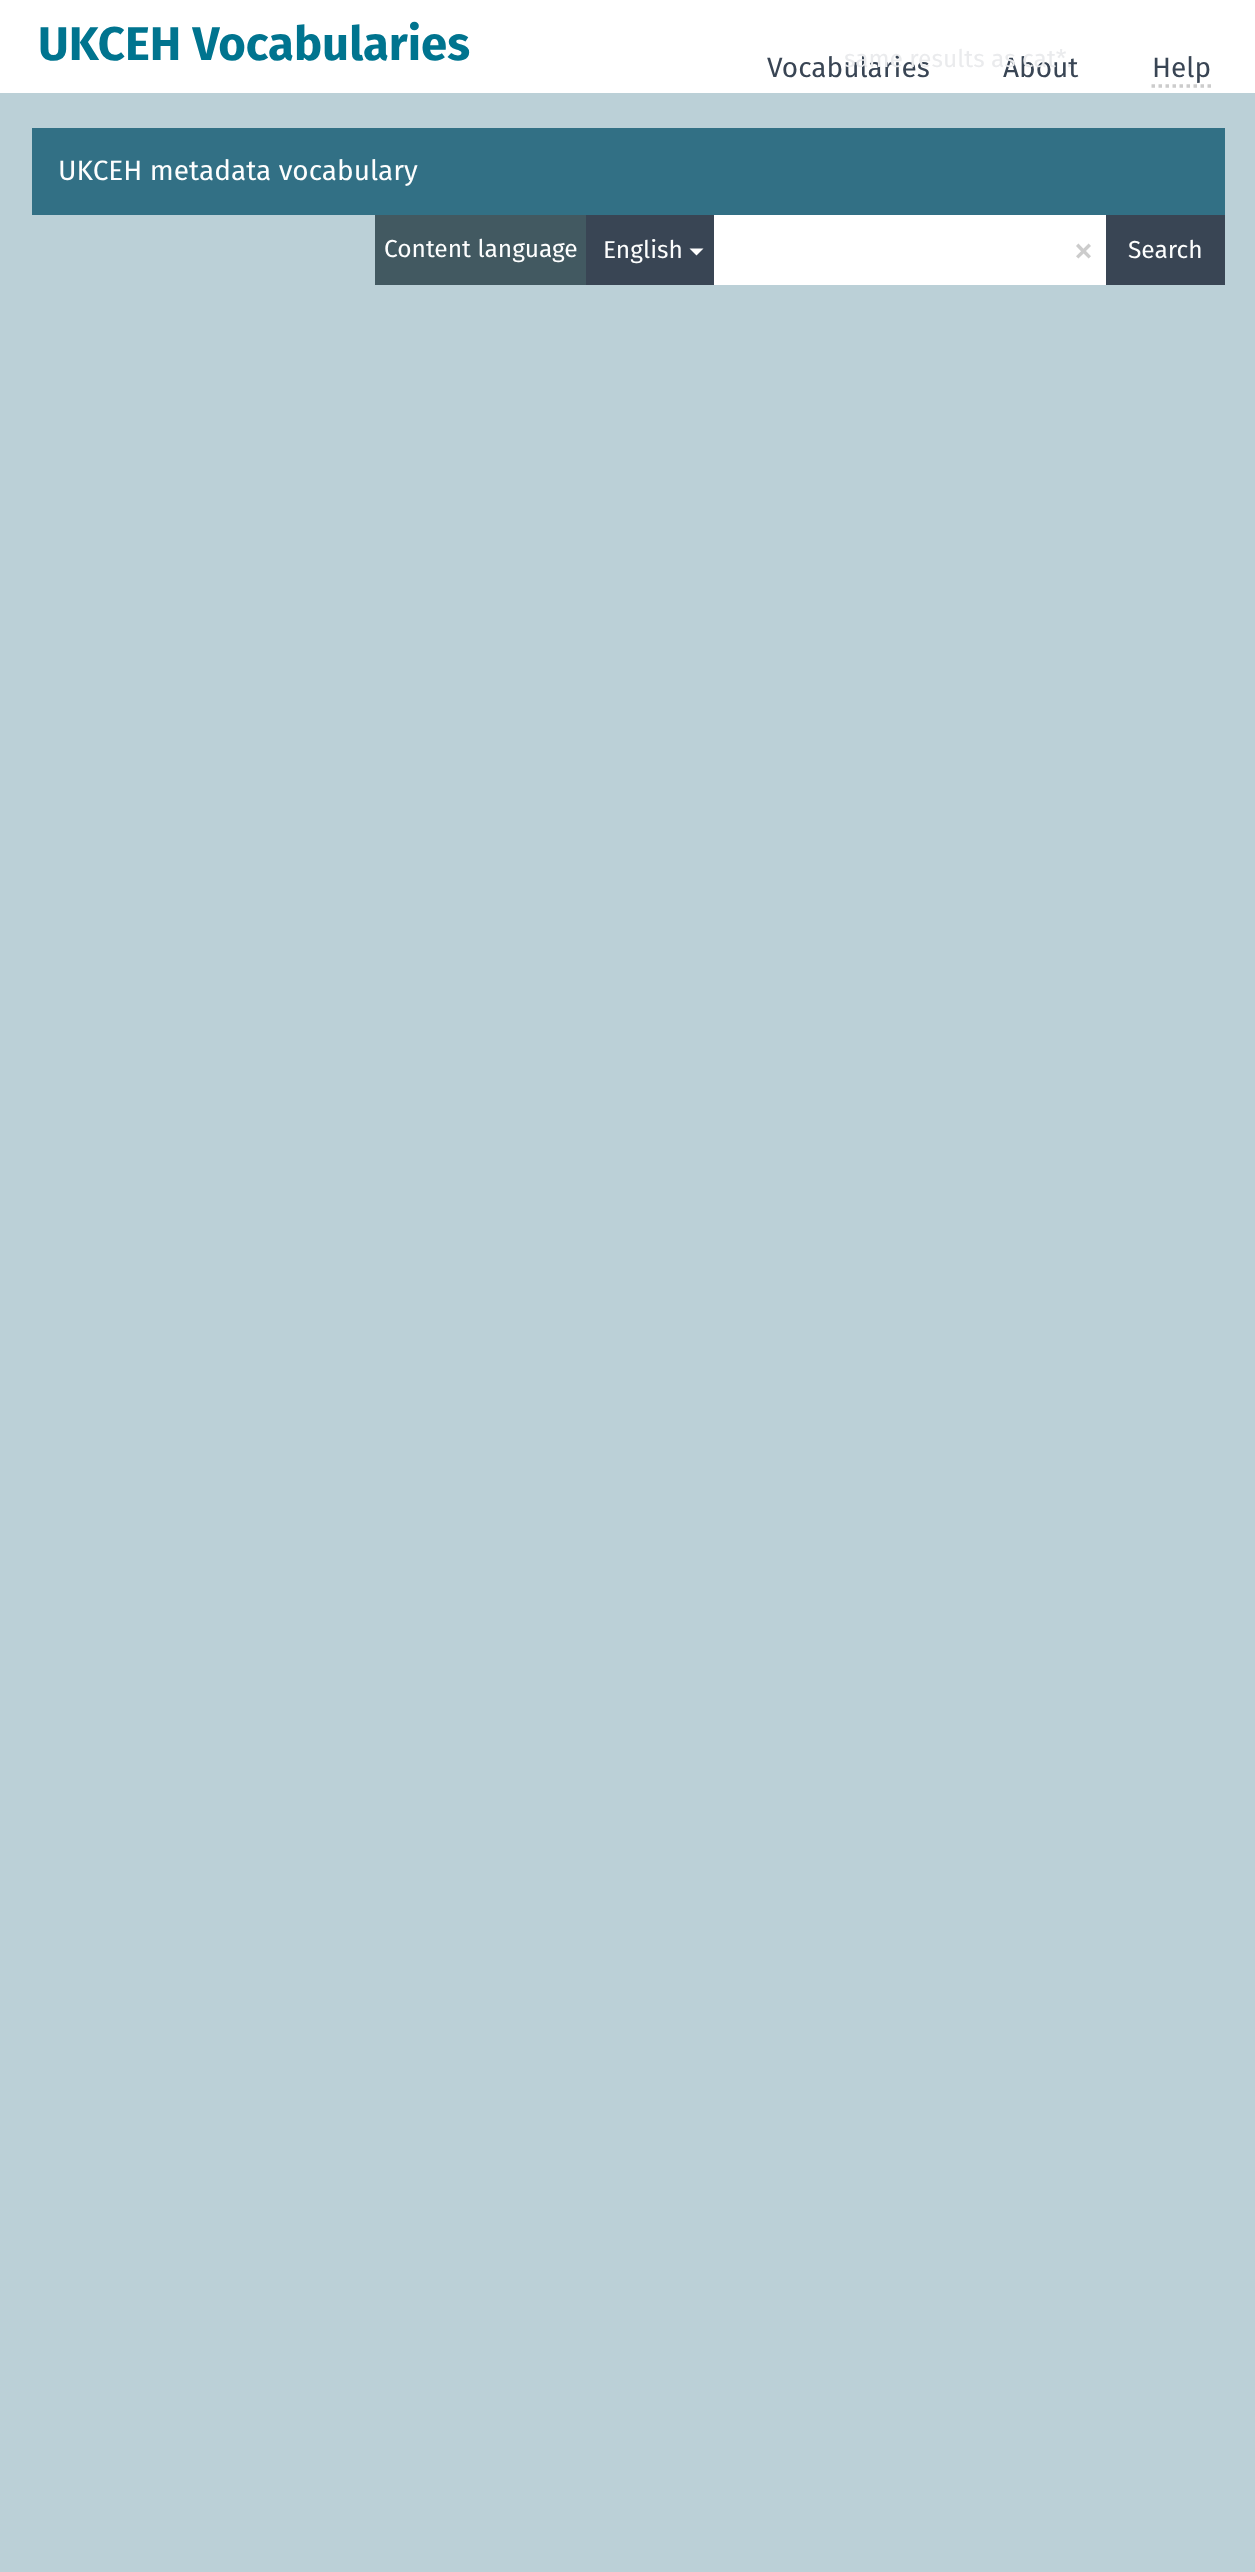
<!DOCTYPE html>
<meta charset="utf-8">
<style>body { margin: 0 } canvas { display: block }</style>
<canvas id="canvas" width="1255" height="2572"></canvas>
<script type="module">
  const canvas = document.getElementById("canvas");
  const ctx = canvas.getContext("2d");
  ctx.miterLimit = 4;
  ctx.fontKerning = "normal";

  ctx.fillStyle = "#bbd0d7";
  ctx.fillRect(0, 0, 1255, 2572);
  ctx.fillStyle = "#ffffff";
  ctx.fillRect(0, 0, 1255, 93);
  ctx.font = "bold 47.25px Fira Sans";
  ctx.fillStyle = "#00748f";
  ctx.fillText("UKCEH Vocabularies", 38, 60);
  ctx.font = "28px Fira Sans";
  ctx.fillStyle = "#394554";
  ctx.fillText("Vocabularies", 767, 77);
  ctx.fillText("About", 1003, 77);
  ctx.font = "24.5px Fira Sans";
  ctx.fillStyle = "#eaebed";
  ctx.fillText("same results as cat*.", 844, 67);
  ctx.font = "28px Fira Sans";
  ctx.fillStyle = "#394554";
  ctx.fillText("Help", 1152, 77);
  ctx.beginPath();
  ctx.moveTo(1151.5, 86);
  ctx.lineTo(1211, 86);
  ctx.strokeStyle = "#cccccc";
  ctx.lineWidth = 3.5;
  ctx.setLineDash([3.5, 3.5]);
  ctx.stroke();
  ctx.fillStyle = "#327085";
  ctx.fillRect(32, 128, 1193, 87);
  ctx.fillStyle = "#fdfefe";
  ctx.fillText("UKCEH metadata vocabulary", 58, 180);
  ctx.fillStyle = "#425961";
  ctx.fillRect(375, 215, 211, 70);
  ctx.font = "24.5px Fira Sans";
  ctx.fillStyle = "#fdfefe";
  ctx.fillText("Content language", 384, 257);
  ctx.fillStyle = "#394554";
  ctx.fillRect(586, 215, 128, 70);
  ctx.fillStyle = "#fdfefe";
  ctx.fillText("English", 603, 258);
  ctx.fillStyle = "#ffffff";
  ctx.beginPath();
  ctx.moveTo(689.5, 248.5);
  ctx.lineTo(703.5, 248.5);
  ctx.lineTo(696.5, 255.5);
  ctx.closePath();
  ctx.fill();
  ctx.fillRect(714, 215, 392, 70);
  ctx.font = "42px Fira Sans";
  ctx.fillStyle = "#cccccc";
  ctx.fillText("×", 1073, 264);
  ctx.fillStyle = "#394554";
  ctx.fillRect(1106, 215, 119, 70);
  ctx.font = "24.5px Fira Sans";
  ctx.fillStyle = "#fdfefe";
  ctx.fillText("Search", 1128, 258);
</script>
